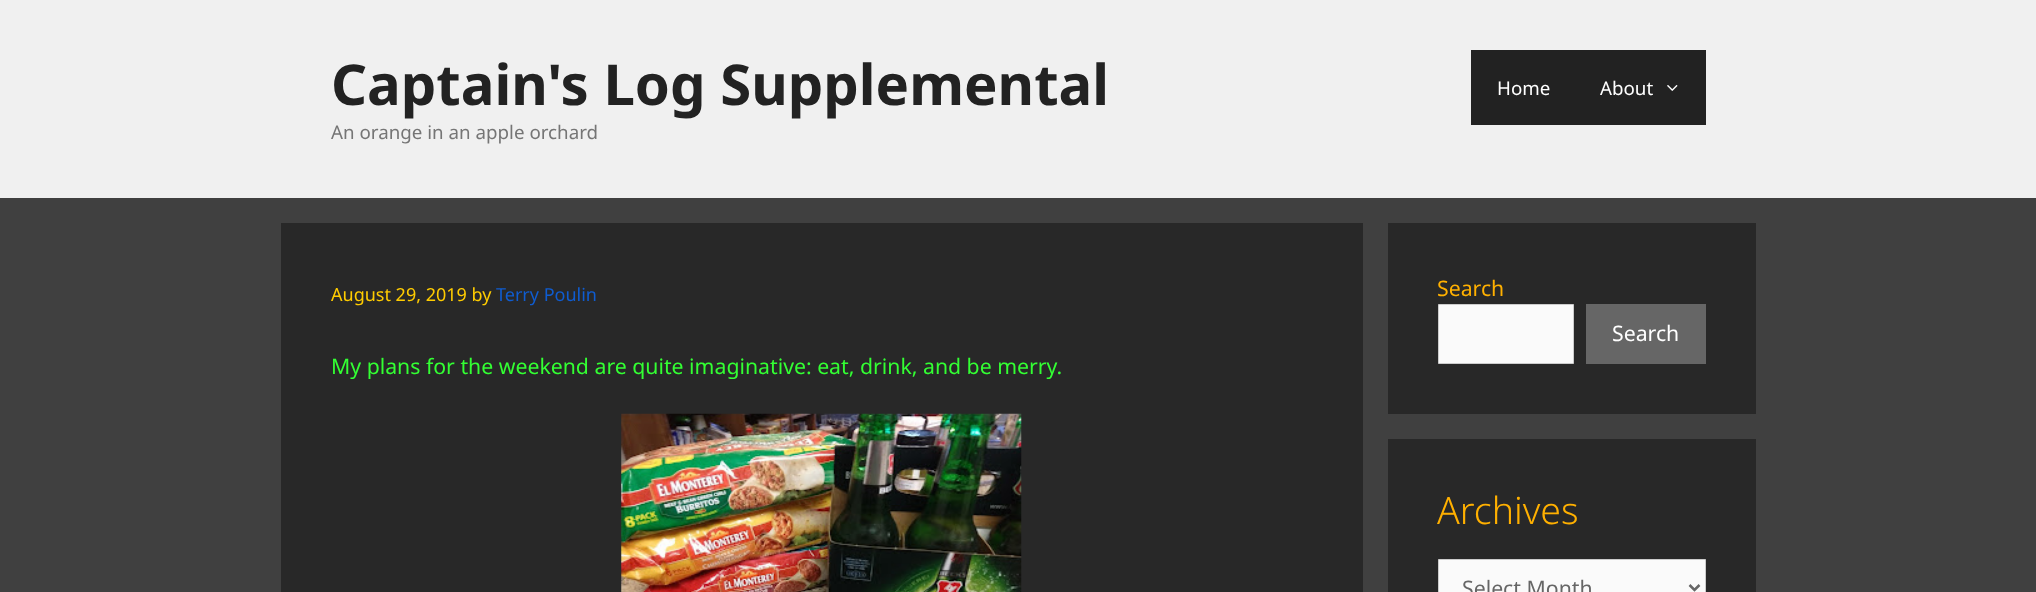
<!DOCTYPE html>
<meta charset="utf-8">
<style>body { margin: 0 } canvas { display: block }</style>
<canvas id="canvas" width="2036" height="592"></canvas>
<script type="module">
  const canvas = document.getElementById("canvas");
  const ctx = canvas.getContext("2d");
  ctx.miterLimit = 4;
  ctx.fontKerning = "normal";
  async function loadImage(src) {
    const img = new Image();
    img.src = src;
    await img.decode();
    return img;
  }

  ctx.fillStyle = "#404040";
  ctx.fillRect(0, 0, 2036, 592);
  ctx.fillStyle = "#f0f0f0";
  ctx.fillRect(0, 0, 2036, 198);
  ctx.font = "bold 56.25px Noto Sans";
  ctx.fillStyle = "#222222";
  ctx.fillText("Captain's Log Supplemental", 331, 105);
  ctx.font = "18.75px Noto Sans";
  ctx.fillStyle = "#757575";
  ctx.fillText("An orange in an apple orchard", 331, 139);
  ctx.fillStyle = "#222222";
  ctx.fillRect(1471, 50, 235, 75);
  ctx.fillStyle = "#ffffff";
  ctx.fillText("Home", 1497, 95);
  ctx.fillText("About", 1600, 95);
  ctx.drawImage(await loadImage("img1.png"), 1667, 85, 11, 6);
  ctx.fillStyle = "#282828";
  ctx.fillRect(281, 223, 1082, 369);
  ctx.font = "18px Noto Sans";
  ctx.fillStyle = "#ffcc00";
  ctx.fillText("August 29, 2019 by", 331, 301);
  ctx.fillStyle = "#0f5cd0";
  ctx.fillText("Terry Poulin", 496, 301);
  ctx.font = "21.25px Noto Sans";
  ctx.fillStyle = "#33ff33";
  ctx.fillText("My plans for the weekend are quite imaginative: eat, drink, and be merry.", 331, 374);
  ctx.drawImage(await loadImage("img2.png"), 621, 413, 401, 179);
  ctx.fillStyle = "#282828";
  ctx.fillRect(1388, 223, 368, 191);
  ctx.fillStyle = "#ffb000";
  ctx.fillText("Search", 1437, 296);
  ctx.fillStyle = "#fafafa";
  ctx.beginPath();
  ctx.rect(1438.5, 304.5, 135, 59);
  ctx.fill();
  ctx.strokeStyle = "#cccccc";
  ctx.stroke();
  ctx.fillStyle = "#666666";
  ctx.fillRect(1586, 304, 120, 60);
  ctx.fillStyle = "#ffffff";
  ctx.fillText("Search", 1612, 341);
  ctx.fillStyle = "#282828";
  ctx.fillRect(1388, 439, 368, 153);
  ctx.font = "300 37.5px Noto Sans";
  ctx.fillStyle = "#ffb000";
  ctx.fillText("Archives", 1437, 524);
  ctx.fillStyle = "#fafafa";
  ctx.beginPath();
  ctx.rect(1438.5, 559.5, 267, 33);
  ctx.fill();
  ctx.stroke();
  ctx.beginPath();
  ctx.moveTo(1689.5, 585);
  ctx.lineTo(1694.5, 590);
  ctx.lineTo(1699.5, 585);
  ctx.strokeStyle = "#666666";
  ctx.lineWidth = 2.5;
  ctx.stroke();
  ctx.font = "21.25px Noto Sans";
  ctx.fillStyle = "#666666";
  ctx.fillText("Select Month", 1462, 596);
</script>
